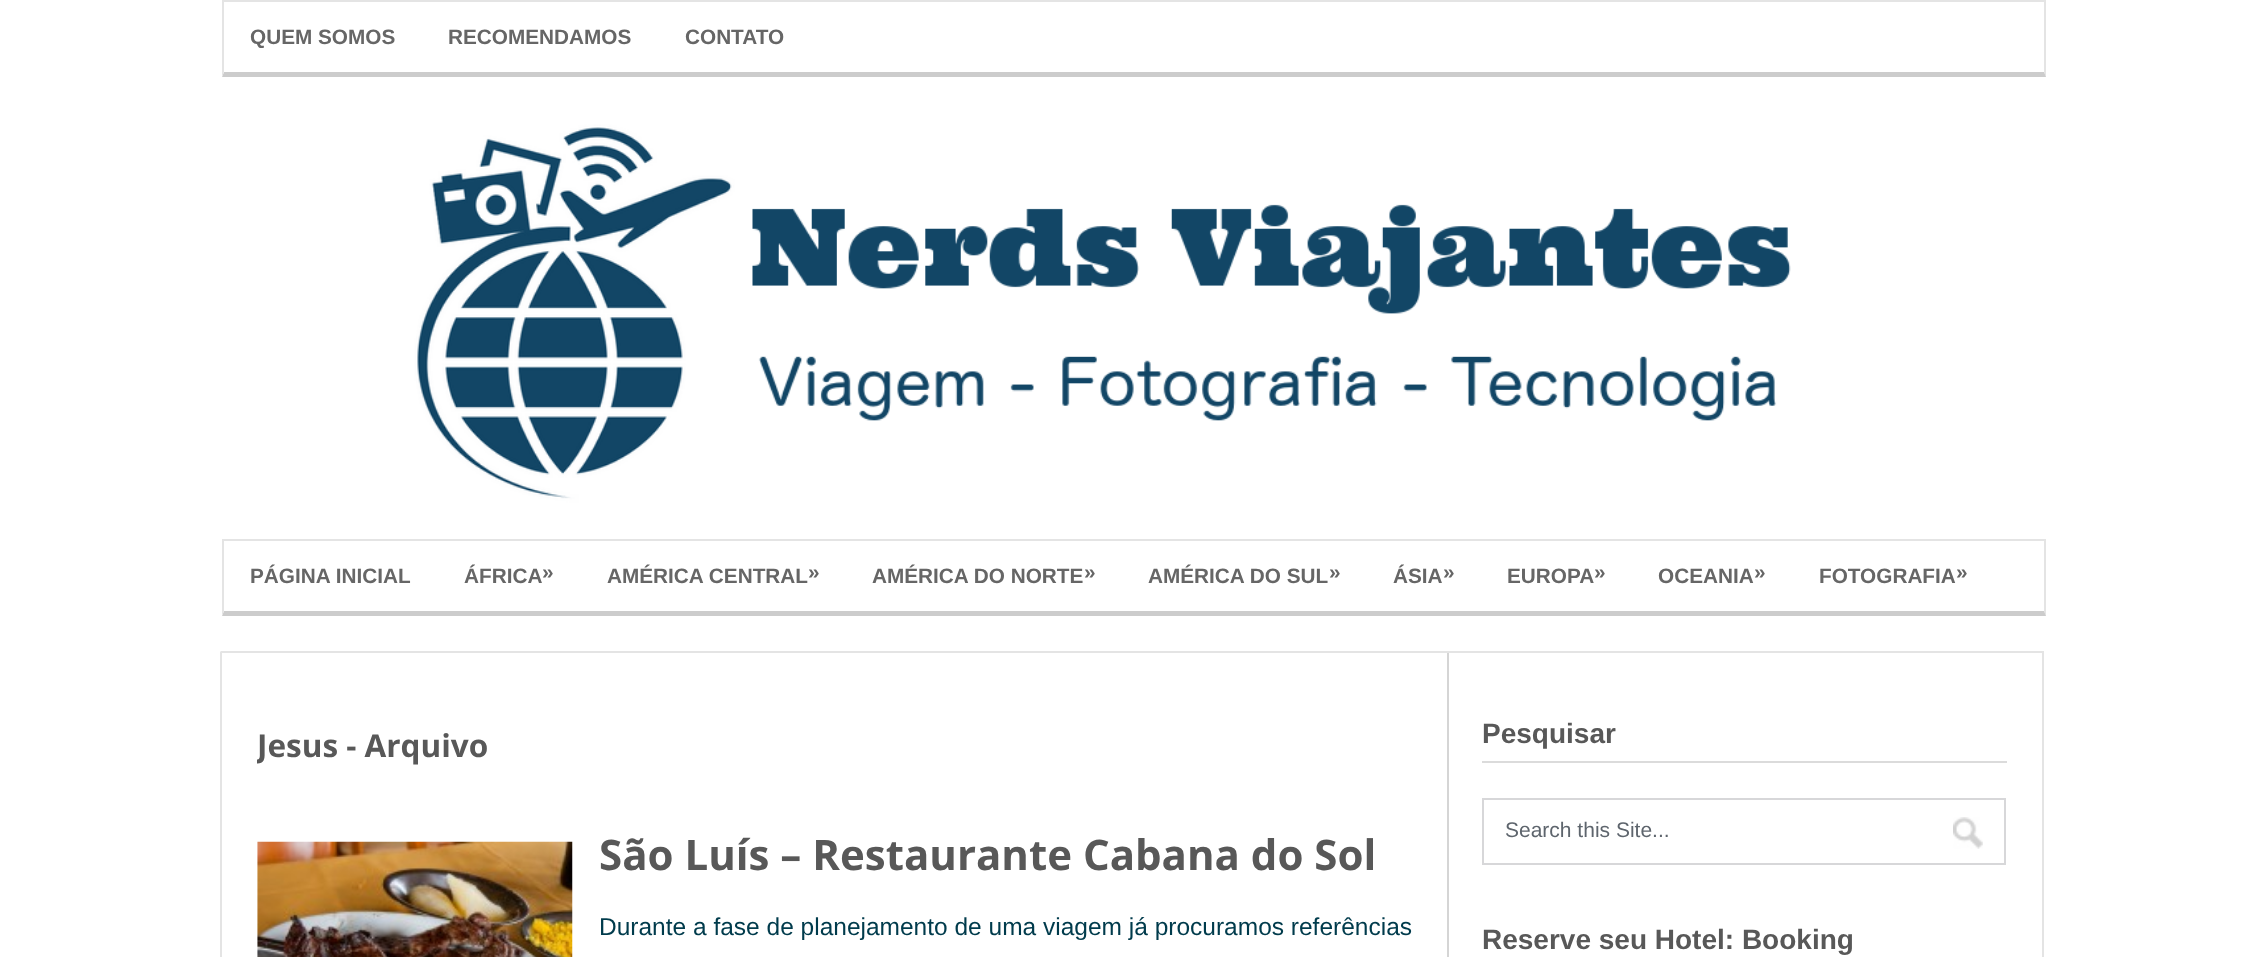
<!DOCTYPE html>
<meta charset="utf-8">
<style>body { margin: 0 } canvas { display: block }</style>
<canvas id="canvas" width="2263" height="957"></canvas>
<script type="module">
  const canvas = document.getElementById("canvas");
  const ctx = canvas.getContext("2d");
  ctx.miterLimit = 4;
  ctx.fontKerning = "normal";
  async function loadImage(src) {
    const img = new Image();
    img.src = src;
    await img.decode();
    return img;
  }

  ctx.fillStyle = "#ffffff";
  ctx.fillRect(0, 0, 2263, 957);
  ctx.fillStyle = "#e4e4e4";
  ctx.fillRect(222, 0, 1824, 2);
  ctx.beginPath();
  ctx.moveTo(2046, 0);
  ctx.lineTo(2046, 77);
  ctx.lineTo(2044, 72);
  ctx.lineTo(2044, 2);
  ctx.closePath();
  ctx.fill();
  ctx.fillStyle = "#cccccc";
  ctx.beginPath();
  ctx.moveTo(2046, 77);
  ctx.lineTo(222, 77);
  ctx.lineTo(224, 72);
  ctx.lineTo(2044, 72);
  ctx.closePath();
  ctx.fill();
  ctx.fillStyle = "#e4e4e4";
  ctx.beginPath();
  ctx.moveTo(222, 77);
  ctx.lineTo(222, 0);
  ctx.lineTo(224, 2);
  ctx.lineTo(224, 72);
  ctx.closePath();
  ctx.fill();
  ctx.font = "bold 20.75px Liberation Sans";
  ctx.fillStyle = "#666666";
  ctx.fillText("QUEM SOMOS", 250, 44);
  ctx.fillText("RECOMENDAMOS", 448, 44);
  ctx.fillText("CONTATO", 685, 44);
  ctx.drawImage(await loadImage("img1.png"), 222, 77, 1820, 462);
  ctx.fillStyle = "#e4e4e4";
  ctx.fillRect(222, 539, 1824, 2);
  ctx.beginPath();
  ctx.moveTo(2046, 539);
  ctx.lineTo(2046, 616);
  ctx.lineTo(2044, 611);
  ctx.lineTo(2044, 541);
  ctx.closePath();
  ctx.fill();
  ctx.fillStyle = "#cccccc";
  ctx.beginPath();
  ctx.moveTo(2046, 616);
  ctx.lineTo(222, 616);
  ctx.lineTo(224, 611);
  ctx.lineTo(2044, 611);
  ctx.closePath();
  ctx.fill();
  ctx.fillStyle = "#e4e4e4";
  ctx.beginPath();
  ctx.moveTo(222, 616);
  ctx.lineTo(222, 539);
  ctx.lineTo(224, 541);
  ctx.lineTo(224, 611);
  ctx.closePath();
  ctx.fill();
  ctx.fillStyle = "#666666";
  ctx.fillText("PÁGINA INICIAL", 250, 583);
  ctx.fillText("ÁFRICA", 464, 583);
  ctx.fillText("»", 542, 579);
  ctx.fillText("AMÉRICA CENTRAL", 607, 583);
  ctx.fillText("»", 808, 579);
  ctx.fillText("AMÉRICA DO NORTE", 872, 583);
  ctx.fillText("»", 1084, 579);
  ctx.fillText("AMÉRICA DO SUL", 1148, 583);
  ctx.fillText("»", 1329, 579);
  ctx.fillText("ÁSIA", 1393, 583);
  ctx.fillText("»", 1443, 579);
  ctx.fillText("EUROPA", 1507, 583);
  ctx.fillText("»", 1594, 579);
  ctx.fillText("OCEANIA", 1658, 583);
  ctx.fillText("»", 1754, 579);
  ctx.fillText("FOTOGRAFIA", 1819, 583);
  ctx.fillText("»", 1956, 579);
  ctx.fillStyle = "#e4e4e4";
  ctx.fillRect(221, 651, 1823, 2);
  ctx.beginPath();
  ctx.moveTo(2044, 651);
  ctx.lineTo(2044, 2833);
  ctx.lineTo(2042, 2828);
  ctx.lineTo(2042, 653);
  ctx.closePath();
  ctx.fill();
  ctx.beginPath();
  ctx.moveTo(220, 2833);
  ctx.lineTo(220, 651);
  ctx.lineTo(222, 653);
  ctx.lineTo(222, 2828);
  ctx.closePath();
  ctx.fill();
  ctx.fillStyle = "#d5d5d5";
  ctx.fillRect(1447, 653, 2, 304);
  ctx.save();
  ctx.beginPath();
  ctx.rect(257, 653, 1750, 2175);
  ctx.clip();
  ctx.font = "bold 31.5px Open Sans";
  ctx.fillStyle = "#585858";
  ctx.fillText("Jesus - Arquivo", 257, 757);
  ctx.restore();
  ctx.drawImage(await loadImage("img2.png"), 257, 841, 316, 116);
  ctx.font = "bold 42px Open Sans";
  ctx.fillStyle = "#585858";
  ctx.fillText("São Luís – Restaurante Cabana do Sol", 599, 870);
  ctx.font = "24.5px Liberation Sans";
  ctx.fillStyle = "#003b4c";
  ctx.fillText("Durante a fase de planejamento de uma viagem já procuramos referências", 599, 935);
  ctx.fillStyle = "#dbdbdb";
  ctx.fillRect(1482, 761, 525, 2);
  ctx.font = "bold 28px Liberation Sans";
  ctx.fillStyle = "#585858";
  ctx.fillText("Pesquisar", 1482, 743);
  ctx.strokeStyle = "#d7d7d9";
  ctx.lineWidth = 2;
  ctx.strokeRect(1483, 799, 522, 65);
  ctx.font = "21px Liberation Sans";
  ctx.fillStyle = "#5e656d";
  ctx.fillText("Search this Site...", 1505, 837);
  ctx.drawImage(await loadImage("img3.png"), 1953, 817, 30, 32);
  ctx.font = "bold 28px Liberation Sans";
  ctx.fillStyle = "#585858";
  ctx.fillText("Reserve seu Hotel: Booking", 1482, 949);
</script>
